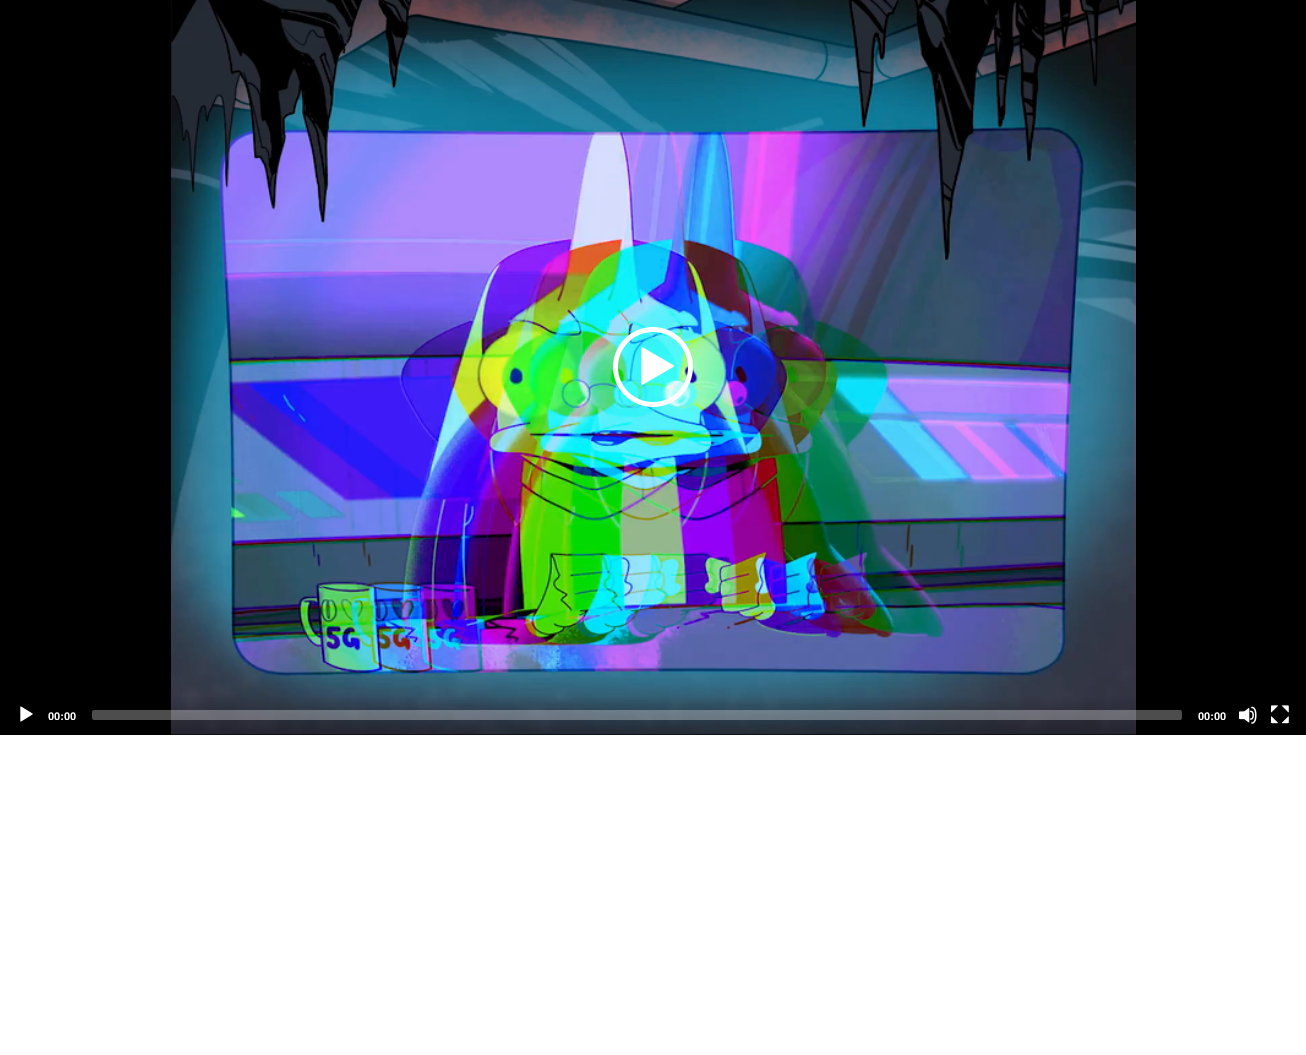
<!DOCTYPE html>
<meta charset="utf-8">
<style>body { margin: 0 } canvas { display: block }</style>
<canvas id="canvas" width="1306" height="1055"></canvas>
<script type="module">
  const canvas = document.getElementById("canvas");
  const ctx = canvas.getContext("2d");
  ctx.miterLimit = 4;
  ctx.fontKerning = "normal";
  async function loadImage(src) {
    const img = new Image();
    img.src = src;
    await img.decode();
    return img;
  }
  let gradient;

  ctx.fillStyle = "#ffffff";
  ctx.fillRect(0, 0, 1306, 1055);
  ctx.fillStyle = "#000000";
  ctx.fillRect(0, 0, 1306, 735);
  ctx.drawImage(await loadImage("img1.png"), 171, 0, 965, 735);
  ctx.drawImage(await loadImage("img2.png"), 613, 327, 80, 80);
  gradient = ctx.createLinearGradient(653, 695, 653, 735);
  gradient.addColorStop(0, "rgba(0, 0, 0, 0)");
  gradient.addColorStop(1, "rgba(0, 0, 0, 0.35)");
  ctx.fillStyle = gradient;
  ctx.fillRect(171, 697, 965, 38);
  ctx.drawImage(await loadImage("img3.png"), 20, 706, 13, 16);
  ctx.font = "bold 11px Liberation Sans";
  ctx.fillStyle = "#ffffff";
  ctx.fillText("00:00", 48, 720);
  ctx.fillStyle = "rgba(255, 255, 255, 0.3)";
  ctx.beginPath();
  ctx.roundRect(92, 710, 1090, 10, 2);
  ctx.fill();
  ctx.fillStyle = "#ffffff";
  ctx.fillText("00:00", 1198, 720);
  ctx.drawImage(await loadImage("img4.png"), 1239, 706, 18, 18);
  ctx.drawImage(await loadImage("img5.png"), 1271, 705, 18, 19);
</script>
